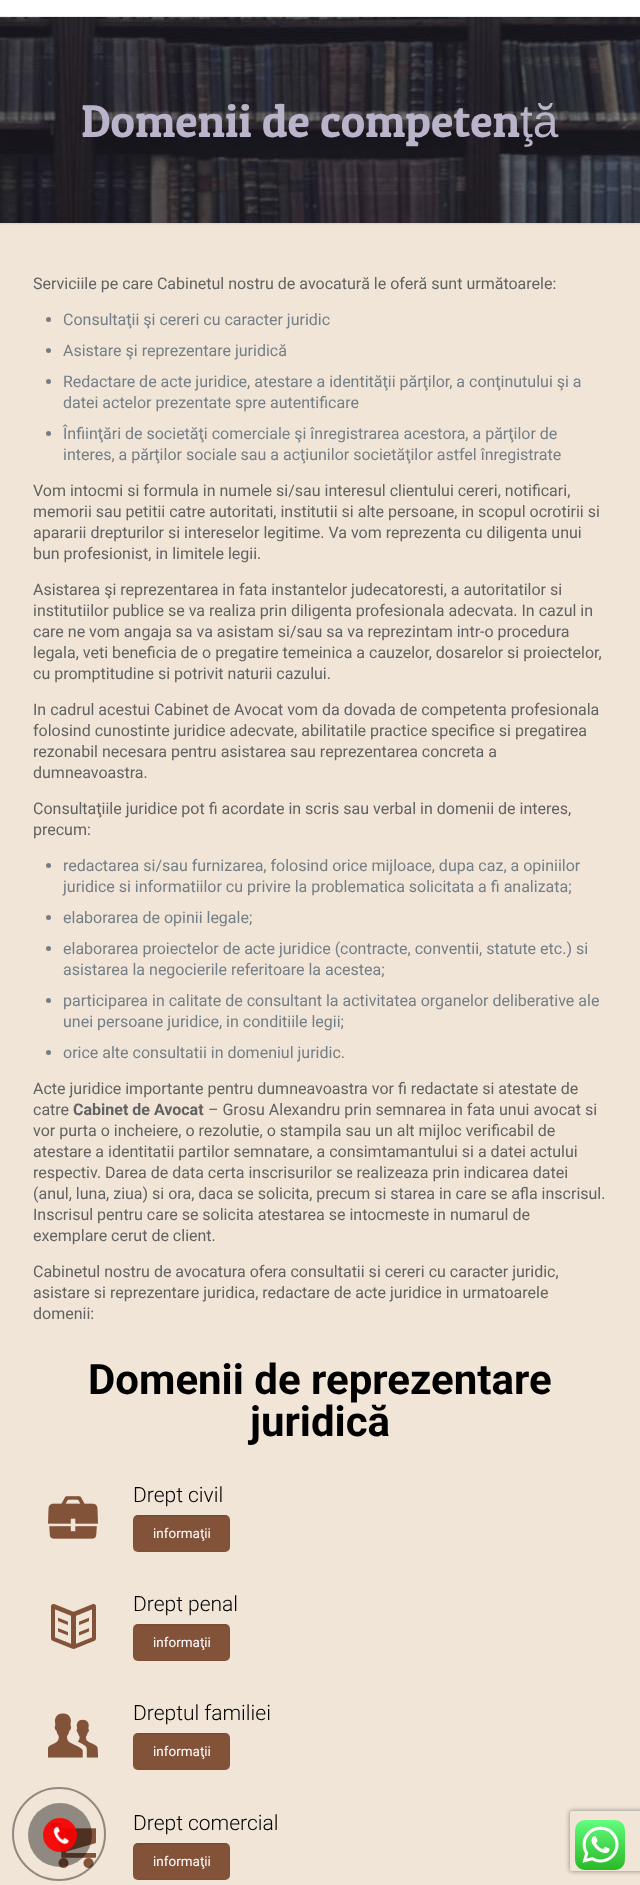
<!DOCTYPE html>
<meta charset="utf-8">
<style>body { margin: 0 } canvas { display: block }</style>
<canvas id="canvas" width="640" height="1885"></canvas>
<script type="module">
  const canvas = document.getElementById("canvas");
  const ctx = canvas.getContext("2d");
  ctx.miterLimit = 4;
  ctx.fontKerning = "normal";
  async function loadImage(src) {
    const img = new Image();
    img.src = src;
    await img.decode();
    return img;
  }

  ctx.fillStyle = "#ffffff";
  ctx.fillRect(0, 0, 640, 1885);
  ctx.drawImage(await loadImage("img1.png"), 0, 17, 640, 206);
  ctx.fillStyle = "#ebebeb";
  ctx.fillRect(0, 16, 640, 1);
  ctx.font = "46px Patua One";
  ctx.fillStyle = "#bbb3c9";
  ctx.fillText("Domenii de competen", 81, 137);
  ctx.font = "46px Liberation Sans";
  ctx.fillText("ţă", 520, 137);
  ctx.fillStyle = "#f1e5d7";
  ctx.fillRect(0, 223, 640, 1662);
  ctx.drawImage(await loadImage("img2.png"), 0, 223, 640, 2);
  ctx.font = "16px Roboto";
  ctx.fillStyle = "#626262";
  ctx.fillText("Serviciile pe care Cabinetul nostru de avocatură le oferă sunt următoarele:", 33, 289);
  ctx.fillStyle = "#737e86";
  ctx.beginPath();
  ctx.arc(48.5, 319.5, 2.5, 0, Math.PI * 2);
  ctx.fill();
  ctx.fillText("Consultaţii şi cereri cu caracter juridic", 63, 325);
  ctx.beginPath();
  ctx.arc(48.5, 350.5, 2.5, 0, Math.PI * 2);
  ctx.fill();
  ctx.fillText("Asistare şi reprezentare juridică", 63, 356);
  ctx.beginPath();
  ctx.arc(48.5, 381.5, 2.5, 0, Math.PI * 2);
  ctx.fill();
  ctx.fillText("Redactare de acte juridice, atestare a identităţii părţilor, a conţinutului şi a", 63, 387);
  ctx.fillText("datei actelor prezentate spre autentificare", 63, 408);
  ctx.beginPath();
  ctx.arc(48.5, 433.5, 2.5, 0, Math.PI * 2);
  ctx.fill();
  ctx.fillText("Înfiinţări de societăţi comerciale şi înregistrarea acestora, a părţilor de", 63, 439);
  ctx.fillText("interes, a părţilor sociale sau a acţiunilor societăţilor astfel înregistrate", 63, 460);
  ctx.fillStyle = "#626262";
  ctx.fillText("Vom intocmi si formula in numele si/sau interesul clientului cereri, notificari,", 33, 496);
  ctx.fillText("memorii sau petitii catre autoritati, institutii si alte persoane, in scopul ocrotirii si", 33, 517);
  ctx.fillText("apararii drepturilor si intereselor legitime. Va vom reprezenta cu diligenta unui", 33, 538);
  ctx.fillText("bun profesionist, in limitele legii.", 33, 559);
  ctx.fillText("Asistarea şi reprezentarea in fata instantelor judecatoresti, a autoritatilor si", 33, 595);
  ctx.fillText("institutiilor publice se va realiza prin diligenta profesionala adecvata. In cazul in", 33, 616);
  ctx.fillText("care ne vom angaja sa va asistam si/sau sa va reprezintam intr-o procedura", 33, 637);
  ctx.fillText("legala, veti beneficia de o pregatire temeinica a cauzelor, dosarelor si proiectelor,", 33, 658);
  ctx.fillText("cu promptitudine si potrivit naturii cazului.", 33, 679);
  ctx.fillText("In cadrul acestui Cabinet de Avocat vom da dovada de competenta profesionala", 33, 715);
  ctx.fillText("folosind cunostinte juridice adecvate, abilitatile practice specifice si pregatirea", 33, 736);
  ctx.fillText("rezonabil necesara pentru asistarea sau reprezentarea concreta a", 33, 757);
  ctx.fillText("dumneavoastra.", 33, 778);
  ctx.fillText("Consultaţiile juridice pot fi acordate in scris sau verbal in domenii de interes,", 33, 814);
  ctx.fillText("precum:", 33, 835);
  ctx.fillStyle = "#737e86";
  ctx.beginPath();
  ctx.arc(48.5, 865.5, 2.5, 0, Math.PI * 2);
  ctx.fill();
  ctx.fillText("redactarea si/sau furnizarea, folosind orice mijloace, dupa caz, a opiniilor", 63, 871);
  ctx.fillText("juridice si informatiilor cu privire la problematica solicitata a fi analizata;", 63, 892);
  ctx.beginPath();
  ctx.arc(48.5, 917.5, 2.5, 0, Math.PI * 2);
  ctx.fill();
  ctx.fillText("elaborarea de opinii legale;", 63, 923);
  ctx.beginPath();
  ctx.arc(48.5, 948.5, 2.5, 0, Math.PI * 2);
  ctx.fill();
  ctx.fillText("elaborarea proiectelor de acte juridice (contracte, conventii, statute etc.) si", 63, 954);
  ctx.fillText("asistarea la negocierile referitoare la acestea;", 63, 975);
  ctx.beginPath();
  ctx.arc(48.5, 1000.5, 2.5, 0, Math.PI * 2);
  ctx.fill();
  ctx.fillText("participarea in calitate de consultant la activitatea organelor deliberative ale", 63, 1006);
  ctx.fillText("unei persoane juridice, in conditiile legii;", 63, 1027);
  ctx.beginPath();
  ctx.arc(48.5, 1052.5, 2.5, 0, Math.PI * 2);
  ctx.fill();
  ctx.fillText("orice alte consultatii in domeniul juridic.", 63, 1058);
  ctx.fillStyle = "#626262";
  ctx.fillText("Acte juridice importante pentru dumneavoastra vor fi redactate si atestate de", 33, 1094);
  ctx.fillText("catre", 33, 1115);
  ctx.font = "bold 16px Roboto";
  ctx.fillText("Cabinet de Avocat", 73, 1115);
  ctx.font = "16px Roboto";
  ctx.fillText("– Grosu Alexandru prin semnarea in fata unui avocat si", 208, 1115);
  ctx.fillText("vor purta o incheiere, o rezolutie, o stampila sau un alt mijloc verificabil de", 33, 1136);
  ctx.fillText("atestare a identitatii partilor semnatare, a consimtamantului si a datei actului", 33, 1157);
  ctx.fillText("respectiv. Darea de data certa inscrisurilor se realizeaza prin indicarea datei", 33, 1178);
  ctx.fillText("(anul, luna, ziua) si ora, daca se solicita, precum si starea in care se afla inscrisul.", 33, 1199);
  ctx.fillText("Inscrisul pentru care se solicita atestarea se intocmeste in numarul de", 33, 1220);
  ctx.fillText("exemplare cerut de client.", 33, 1241);
  ctx.fillText("Cabinetul nostru de avocatura ofera consultatii si cereri cu caracter juridic,", 33, 1277);
  ctx.fillText("asistare si reprezentare juridica, redactare de acte juridice in urmatoarele", 33, 1298);
  ctx.fillText("domenii:", 33, 1319);
  ctx.font = "bold 42px Roboto";
  ctx.fillStyle = "#000000";
  ctx.fillText("Domenii de reprezentare", 88, 1394);
  ctx.fillText("juridică", 250, 1436);
  ctx.drawImage(await loadImage("img3.png"), 48, 1496, 50, 43);
  ctx.font = "300 21px Roboto";
  ctx.fillText("Drept civil", 133, 1502);
  ctx.fillStyle = "#825339";
  ctx.beginPath();
  ctx.roundRect(133, 1515, 97, 37, 5);
  ctx.fill();
  ctx.drawImage(await loadImage("img4.png"), 134, 1515, 95, 2);
  ctx.strokeStyle = "rgba(0, 0, 0, 0.03)";
  ctx.strokeRect(133.5, 1515.5, 96, 36);
  ctx.font = "13.5px Roboto";
  ctx.fillStyle = "#ffffff";
  ctx.fillText("informaţii", 153, 1538);
  ctx.drawImage(await loadImage("img5.png"), 51, 1603, 45, 46);
  ctx.font = "300 21px Roboto";
  ctx.fillStyle = "#000000";
  ctx.fillText("Drept penal", 133, 1611);
  ctx.fillStyle = "#825339";
  ctx.beginPath();
  ctx.roundRect(133, 1624, 97, 37, 5);
  ctx.fill();
  ctx.drawImage(await loadImage("img4.png"), 134, 1624, 95, 2);
  ctx.strokeRect(133.5, 1624.5, 96, 36);
  ctx.font = "13.5px Roboto";
  ctx.fillStyle = "#ffffff";
  ctx.fillText("informaţii", 153, 1647);
  ctx.drawImage(await loadImage("img6.png"), 48, 1713, 50, 45);
  ctx.font = "300 21px Roboto";
  ctx.fillStyle = "#000000";
  ctx.fillText("Dreptul familiei", 133, 1720);
  ctx.fillStyle = "#825339";
  ctx.beginPath();
  ctx.roundRect(133, 1733, 97, 37, 5);
  ctx.fill();
  ctx.drawImage(await loadImage("img4.png"), 134, 1733, 95, 2);
  ctx.strokeRect(133.5, 1733.5, 96, 36);
  ctx.font = "13.5px Roboto";
  ctx.fillStyle = "#ffffff";
  ctx.fillText("informaţii", 153, 1756);
  ctx.drawImage(await loadImage("img7.png"), 51, 1823, 45, 45);
  ctx.font = "300 21px Roboto";
  ctx.fillStyle = "#000000";
  ctx.fillText("Drept comercial", 133, 1830);
  ctx.fillStyle = "#825339";
  ctx.beginPath();
  ctx.roundRect(133, 1843, 97, 37, 5);
  ctx.fill();
  ctx.drawImage(await loadImage("img4.png"), 134, 1843, 95, 2);
  ctx.strokeRect(133.5, 1843.5, 96, 36);
  ctx.font = "13.5px Roboto";
  ctx.fillStyle = "#ffffff";
  ctx.fillText("informaţii", 153, 1866);
  ctx.beginPath();
  ctx.arc(59, 1834, 46, 0, Math.PI * 2);
  ctx.strokeStyle = "rgba(0, 0, 0, 0.4)";
  ctx.lineWidth = 2;
  ctx.stroke();
  ctx.fillStyle = "rgba(0, 0, 0, 0.4)";
  ctx.beginPath();
  ctx.arc(60, 1835, 32, 0, Math.PI * 2);
  ctx.fill();
  ctx.fillStyle = "rgba(255, 0, 0, 0.9)";
  ctx.beginPath();
  ctx.arc(60, 1835, 17, 0, Math.PI * 2);
  ctx.fill();
  ctx.drawImage(await loadImage("img8.png"), 53, 1826, 16, 19);
  ctx.save();
  ctx.beginPath();
  ctx.moveTo(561, 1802);
  ctx.lineTo(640, 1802);
  ctx.lineTo(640, 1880);
  ctx.lineTo(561, 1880);
  ctx.closePath();
  ctx.moveTo(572, 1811);
  ctx.lineTo(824, 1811);
  ctx.bezierCurveTo(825, 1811, 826, 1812, 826, 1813);
  ctx.lineTo(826, 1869);
  ctx.bezierCurveTo(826, 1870, 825, 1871, 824, 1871);
  ctx.lineTo(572, 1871);
  ctx.bezierCurveTo(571, 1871, 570, 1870, 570, 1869);
  ctx.lineTo(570, 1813);
  ctx.bezierCurveTo(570, 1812, 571, 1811, 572, 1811);
  ctx.closePath();
  ctx.clip("evenodd");
  ctx.fillStyle = "#808080";
  ctx.filter = "blur(2.5px)";
  ctx.beginPath();
  ctx.roundRect(570, 1811, 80, 60, 2);
  ctx.fill();
  ctx.filter = "none";
  ctx.restore();
  ctx.drawImage(await loadImage("img9.png"), 575, 1820, 50, 50);
</script>
